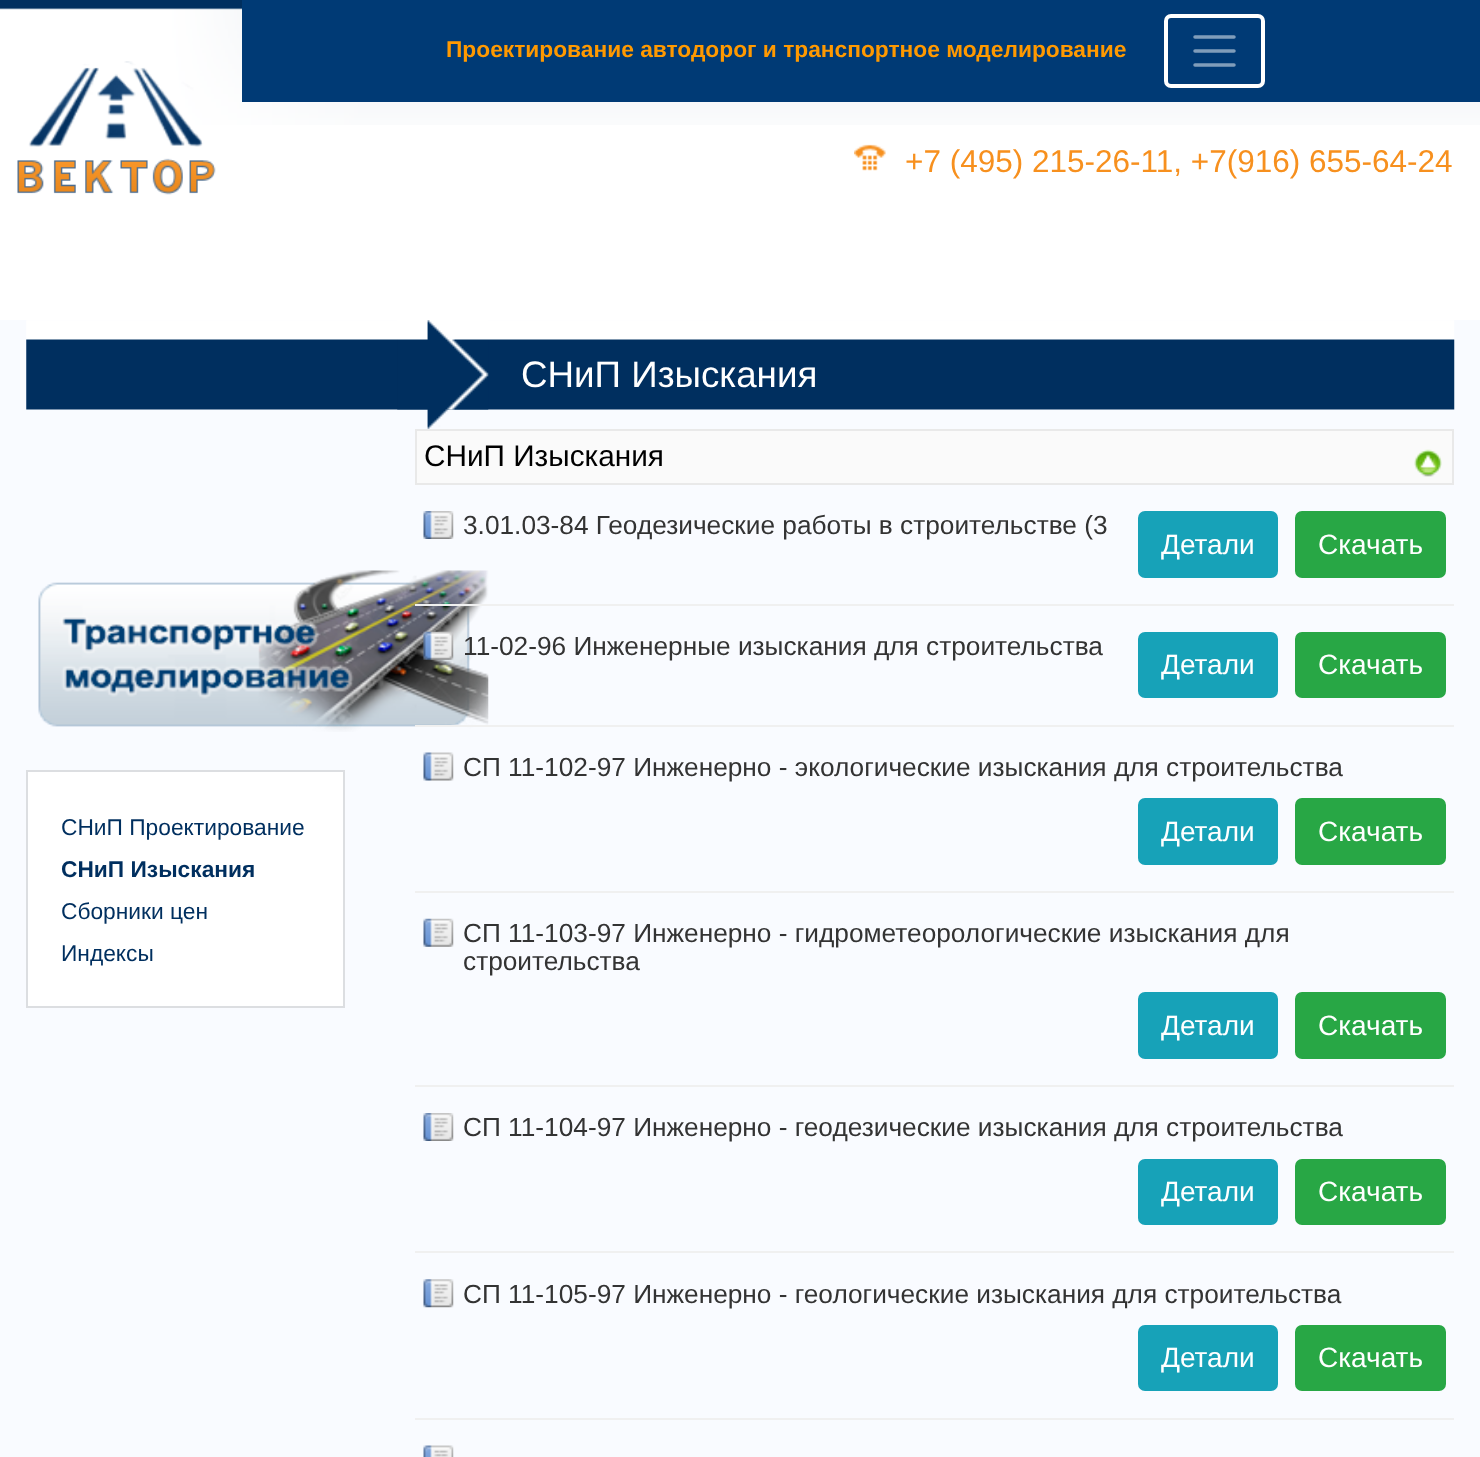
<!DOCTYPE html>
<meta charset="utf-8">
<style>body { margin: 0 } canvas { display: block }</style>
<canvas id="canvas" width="1480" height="1457"></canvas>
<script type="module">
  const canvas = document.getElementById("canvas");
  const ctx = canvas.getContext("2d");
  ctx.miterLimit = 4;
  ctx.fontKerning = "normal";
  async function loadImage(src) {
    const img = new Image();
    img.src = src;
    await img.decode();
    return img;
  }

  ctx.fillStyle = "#f9fbff";
  ctx.fillRect(0, 0, 1480, 1457);
  ctx.fillStyle = "#ffffff";
  ctx.fillRect(0, 125, 1480, 195);
  ctx.drawImage(await loadImage("img1.png"), 0, 0, 242, 8);
  ctx.drawImage(await loadImage("img2.png"), 0, 8, 1480, 117);
  ctx.drawImage(await loadImage("img3.png"), 17, 61, 199, 134);
  ctx.fillStyle = "#003a75";
  ctx.fillRect(242, 0, 1238, 102);
  ctx.font = "bold 22.75px Liberation Sans";
  ctx.fillStyle = "#ff9900";
  ctx.fillText("Проектирование автодорог и транспортное моделирование", 446, 57);
  ctx.beginPath();
  ctx.roundRect(1166, 16, 97, 70, 5);
  ctx.strokeStyle = "#ffffff";
  ctx.lineWidth = 4;
  ctx.stroke();
  ctx.beginPath();
  ctx.moveTo(1195, 37);
  ctx.lineTo(1234, 37);
  ctx.moveTo(1195, 51);
  ctx.lineTo(1234, 51);
  ctx.moveTo(1195, 65);
  ctx.lineTo(1234, 65);
  ctx.strokeStyle = "#809dba";
  ctx.lineWidth = 3.5;
  ctx.lineCap = "round";
  ctx.stroke();
  ctx.drawImage(await loadImage("img4.png"), 854, 144, 32, 27);
  ctx.font = "31.5px Liberation Sans";
  ctx.fillStyle = "#f7901e";
  ctx.fillText("+7 (495) 215-26-11, +7(916) 655-64-24", 905, 172);
  ctx.drawImage(await loadImage("img5.png"), 26, 320, 1429, 90);
  ctx.drawImage(await loadImage("img6.png"), 397, 320, 92, 109);
  ctx.font = "36.75px Liberation Sans";
  ctx.fillStyle = "#ffffff";
  ctx.fillText("СНиП Изыскания", 521, 387);
  ctx.drawImage(await loadImage("img7.png"), 38, 570, 451, 162);
  ctx.beginPath();
  ctx.rect(27, 771, 317, 236);
  ctx.fill();
  ctx.strokeStyle = "#dcdee1";
  ctx.lineWidth = 2;
  ctx.stroke();
  ctx.font = "22.75px Liberation Sans";
  ctx.fillStyle = "#002f5f";
  ctx.fillText("СНиП Проектирование", 61, 835);
  ctx.font = "bold 22.75px Liberation Sans";
  ctx.fillText("СНиП Изыскания", 61, 877);
  ctx.font = "22.75px Liberation Sans";
  ctx.fillText("Сборники цен", 61, 919);
  ctx.fillText("Индексы", 61, 961);
  ctx.fillStyle = "#fafafa";
  ctx.beginPath();
  ctx.rect(416, 430, 1037, 54);
  ctx.fill();
  ctx.strokeStyle = "#e9e9e9";
  ctx.stroke();
  ctx.font = "29.75px Liberation Sans";
  ctx.fillStyle = "#000000";
  ctx.fillText("СНиП Изыскания", 424, 466);
  ctx.drawImage(await loadImage("img8.png"), 1414, 449, 28, 28);
  ctx.fillStyle = "#f0f0f0";
  ctx.fillRect(415, 604, 1039, 2);
  ctx.drawImage(await loadImage("img9.png"), 423, 511, 31, 28);
  ctx.font = "26.25px Liberation Sans";
  ctx.fillStyle = "#333333";
  ctx.fillText("3.01.03-84 Геодезические работы в строительстве (3", 463, 534);
  ctx.fillStyle = "#17a2b8";
  ctx.beginPath();
  ctx.roundRect(1139, 512, 138, 65, 6);
  ctx.fill();
  ctx.strokeStyle = "#17a2b8";
  ctx.stroke();
  ctx.font = "28px Liberation Sans";
  ctx.fillStyle = "#ffffff";
  ctx.fillText("Детали", 1161, 554);
  ctx.fillStyle = "#28a745";
  ctx.beginPath();
  ctx.roundRect(1296, 512, 149, 65, 6);
  ctx.fill();
  ctx.strokeStyle = "#28a745";
  ctx.stroke();
  ctx.fillStyle = "#ffffff";
  ctx.fillText("Скачать", 1318, 554);
  ctx.fillStyle = "#f0f0f0";
  ctx.fillRect(415, 725, 1039, 2);
  ctx.drawImage(await loadImage("img10.png"), 423, 631, 31, 29);
  ctx.font = "26.25px Liberation Sans";
  ctx.fillStyle = "#333333";
  ctx.fillText("11-02-96 Инженерные изыскания для строительства", 463, 655);
  ctx.fillStyle = "#17a2b8";
  ctx.beginPath();
  ctx.roundRect(1139, 633, 138, 64, 6);
  ctx.fill();
  ctx.strokeStyle = "#17a2b8";
  ctx.stroke();
  ctx.font = "28px Liberation Sans";
  ctx.fillStyle = "#ffffff";
  ctx.fillText("Детали", 1161, 674);
  ctx.fillStyle = "#28a745";
  ctx.beginPath();
  ctx.roundRect(1296, 633, 149, 64, 6);
  ctx.fill();
  ctx.strokeStyle = "#28a745";
  ctx.stroke();
  ctx.fillStyle = "#ffffff";
  ctx.fillText("Скачать", 1318, 674);
  ctx.fillStyle = "#f0f0f0";
  ctx.fillRect(415, 891, 1039, 2);
  ctx.drawImage(await loadImage("img11.png"), 423, 752, 31, 29);
  ctx.font = "26.25px Liberation Sans";
  ctx.fillStyle = "#333333";
  ctx.fillText("СП 11-102-97 Инженерно - экологические изыскания для строительства", 463, 776);
  ctx.fillStyle = "#17a2b8";
  ctx.beginPath();
  ctx.roundRect(1139, 799, 138, 65, 6);
  ctx.fill();
  ctx.strokeStyle = "#17a2b8";
  ctx.stroke();
  ctx.font = "28px Liberation Sans";
  ctx.fillStyle = "#ffffff";
  ctx.fillText("Детали", 1161, 841);
  ctx.fillStyle = "#28a745";
  ctx.beginPath();
  ctx.roundRect(1296, 799, 149, 65, 6);
  ctx.fill();
  ctx.strokeStyle = "#28a745";
  ctx.stroke();
  ctx.fillStyle = "#ffffff";
  ctx.fillText("Скачать", 1318, 841);
  ctx.fillStyle = "#f0f0f0";
  ctx.fillRect(415, 1085, 1039, 2);
  ctx.drawImage(await loadImage("img12.png"), 423, 918, 31, 29);
  ctx.font = "26.25px Liberation Sans";
  ctx.fillStyle = "#333333";
  ctx.fillText("СП 11-103-97 Инженерно - гидрометеорологические изыскания для", 463, 942);
  ctx.fillText("строительства", 463, 970);
  ctx.fillStyle = "#17a2b8";
  ctx.beginPath();
  ctx.roundRect(1139, 993, 138, 65, 6);
  ctx.fill();
  ctx.strokeStyle = "#17a2b8";
  ctx.stroke();
  ctx.font = "28px Liberation Sans";
  ctx.fillStyle = "#ffffff";
  ctx.fillText("Детали", 1161, 1035);
  ctx.fillStyle = "#28a745";
  ctx.beginPath();
  ctx.roundRect(1296, 993, 149, 65, 6);
  ctx.fill();
  ctx.strokeStyle = "#28a745";
  ctx.stroke();
  ctx.fillStyle = "#ffffff";
  ctx.fillText("Скачать", 1318, 1035);
  ctx.fillStyle = "#f0f0f0";
  ctx.fillRect(415, 1251, 1039, 2);
  ctx.drawImage(await loadImage("img9.png"), 423, 1113, 31, 28);
  ctx.font = "26.25px Liberation Sans";
  ctx.fillStyle = "#333333";
  ctx.fillText("СП 11-104-97 Инженерно - геодезические изыскания для строительства", 463, 1136);
  ctx.fillStyle = "#17a2b8";
  ctx.beginPath();
  ctx.roundRect(1139, 1160, 138, 64, 6);
  ctx.fill();
  ctx.strokeStyle = "#17a2b8";
  ctx.stroke();
  ctx.font = "28px Liberation Sans";
  ctx.fillStyle = "#ffffff";
  ctx.fillText("Детали", 1161, 1201);
  ctx.fillStyle = "#28a745";
  ctx.beginPath();
  ctx.roundRect(1296, 1160, 149, 64, 6);
  ctx.fill();
  ctx.strokeStyle = "#28a745";
  ctx.stroke();
  ctx.fillStyle = "#ffffff";
  ctx.fillText("Скачать", 1318, 1201);
  ctx.fillStyle = "#f0f0f0";
  ctx.fillRect(415, 1418, 1039, 2);
  ctx.drawImage(await loadImage("img13.png"), 423, 1279, 31, 29);
  ctx.font = "26.25px Liberation Sans";
  ctx.fillStyle = "#333333";
  ctx.fillText("СП 11-105-97 Инженерно - геологические изыскания для строительства", 463, 1303);
  ctx.fillStyle = "#17a2b8";
  ctx.beginPath();
  ctx.roundRect(1139, 1326, 138, 64, 6);
  ctx.fill();
  ctx.strokeStyle = "#17a2b8";
  ctx.stroke();
  ctx.font = "28px Liberation Sans";
  ctx.fillStyle = "#ffffff";
  ctx.fillText("Детали", 1161, 1367);
  ctx.fillStyle = "#28a745";
  ctx.beginPath();
  ctx.roundRect(1296, 1326, 149, 64, 6);
  ctx.fill();
  ctx.strokeStyle = "#28a745";
  ctx.stroke();
  ctx.fillStyle = "#ffffff";
  ctx.fillText("Скачать", 1318, 1367);
  ctx.drawImage(await loadImage("img14.png"), 423, 1445, 31, 12);
</script>
